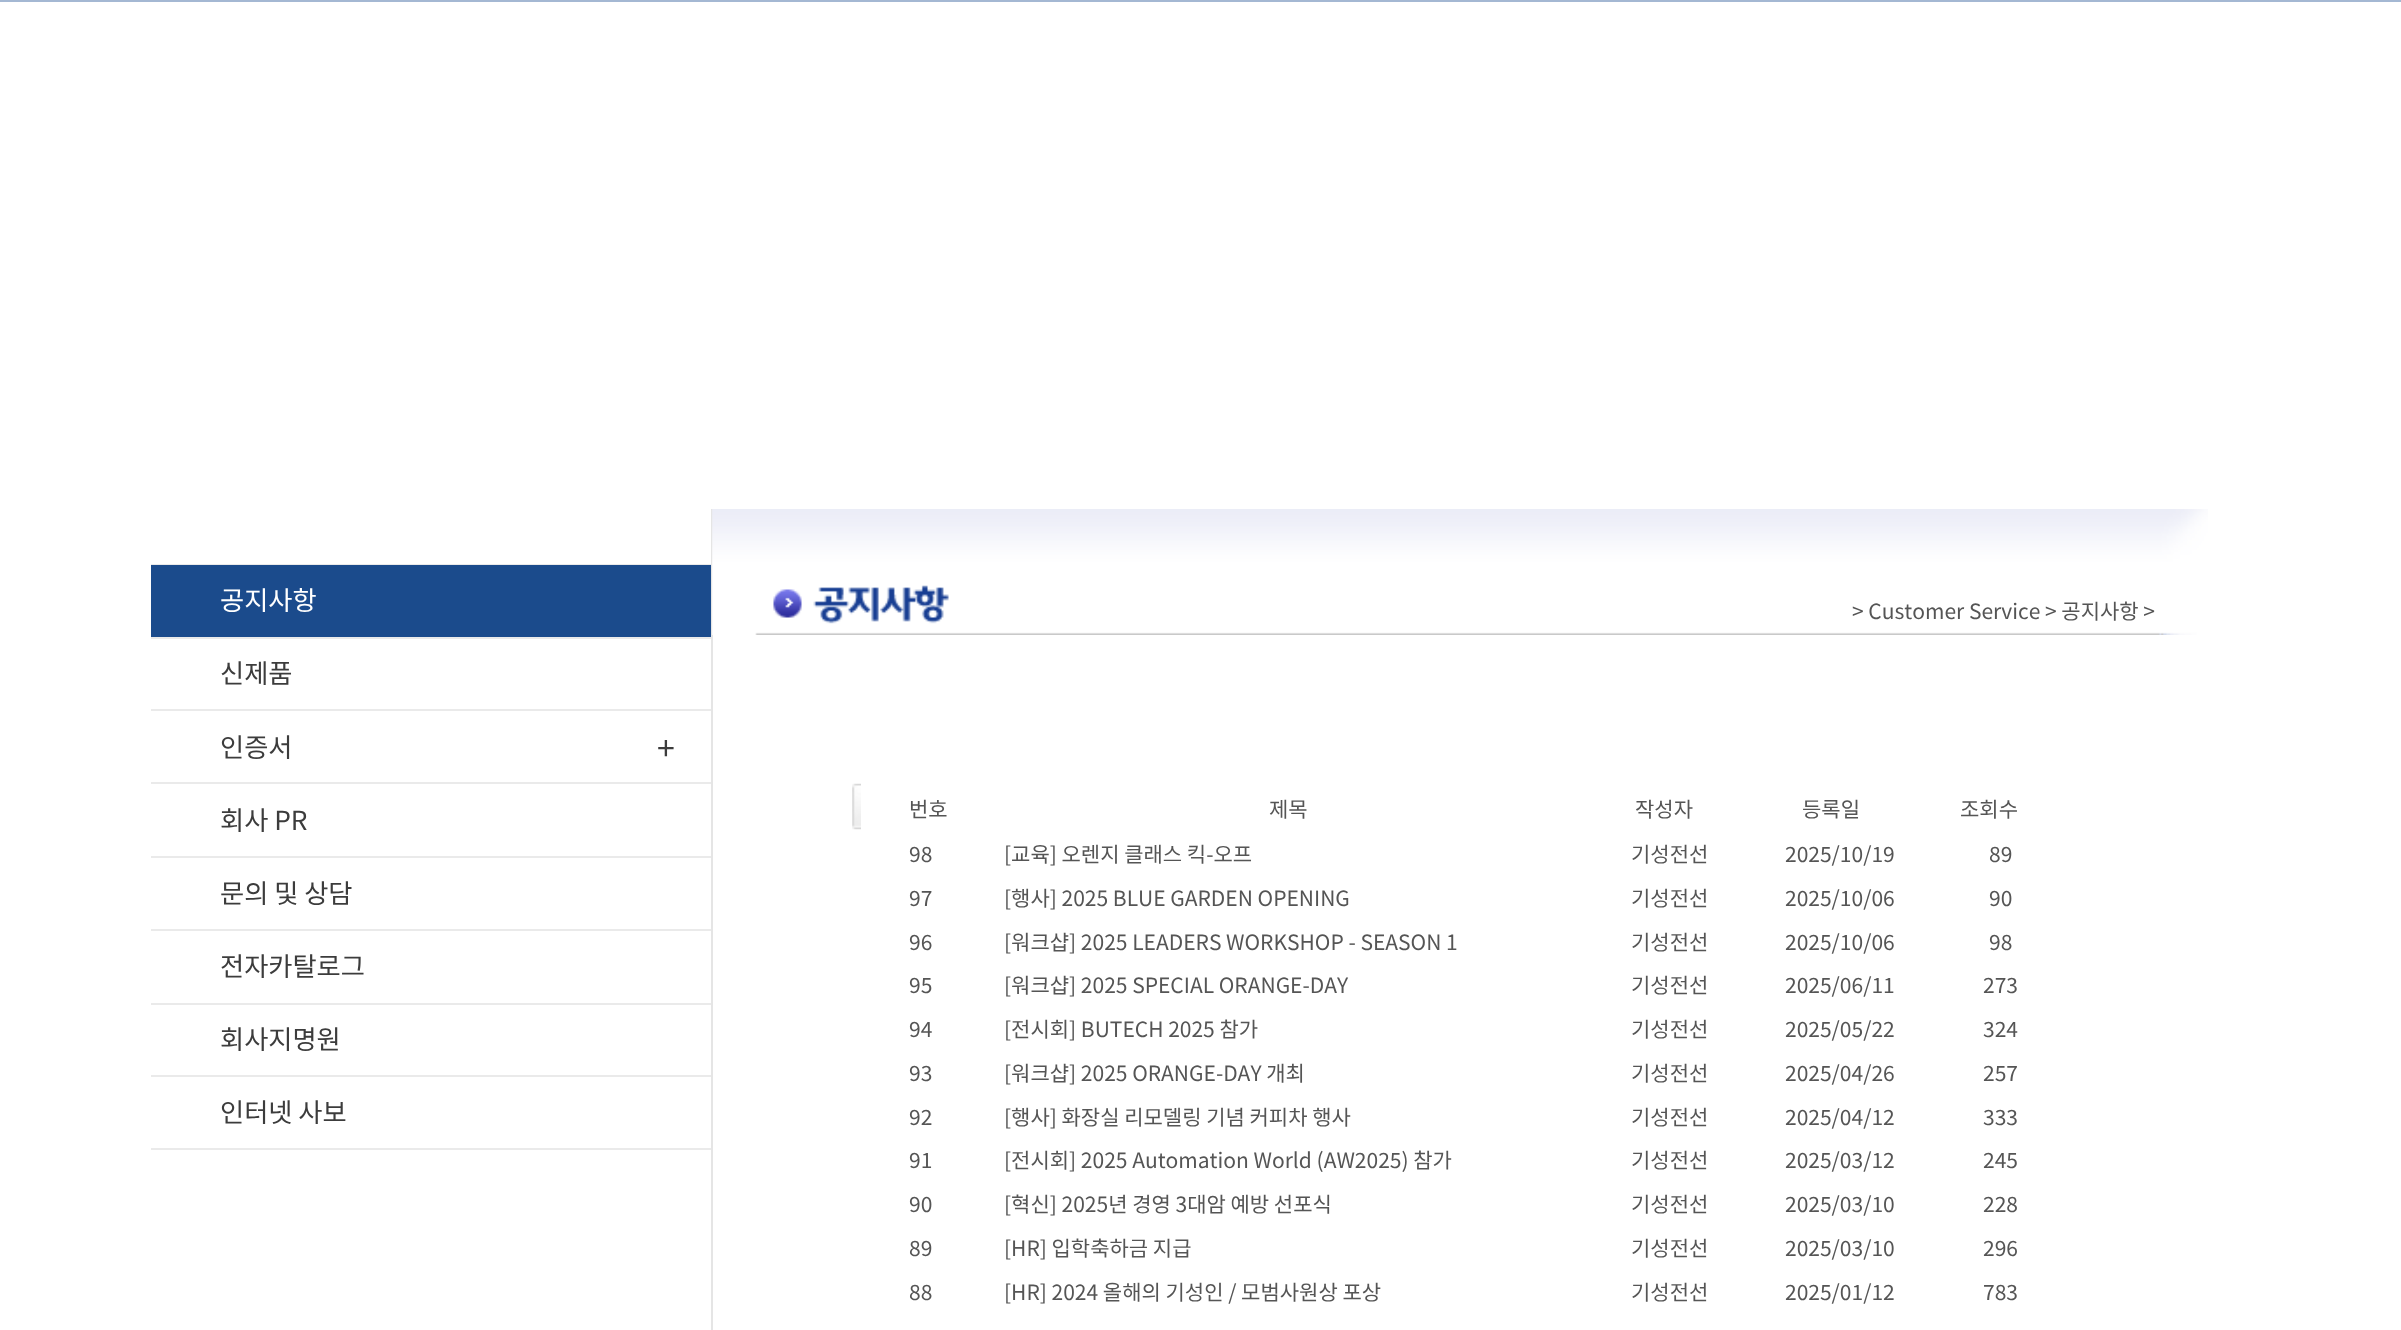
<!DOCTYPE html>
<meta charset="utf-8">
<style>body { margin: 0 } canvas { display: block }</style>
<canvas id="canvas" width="2401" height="1330"></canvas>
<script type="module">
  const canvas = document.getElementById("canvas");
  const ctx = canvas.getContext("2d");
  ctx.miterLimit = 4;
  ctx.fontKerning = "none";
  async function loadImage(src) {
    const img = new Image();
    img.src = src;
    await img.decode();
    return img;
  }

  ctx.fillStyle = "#ffffff";
  ctx.fillRect(0, 0, 2401, 1330);
  ctx.fillStyle = "#a4b8d3";
  ctx.fillRect(0, 0, 2401, 2);
  ctx.fillStyle = "#e5e5e5";
  ctx.fillRect(711, 509, 2, 821);
  ctx.fillStyle = "#eaeaea";
  ctx.fillRect(151, 564, 560, 1);
  ctx.fillRect(151, 637, 560, 2);
  ctx.fillStyle = "#1b4b8c";
  ctx.fillRect(151, 565, 560, 72);
  ctx.font = "26.25px Noto Sans KR";
  ctx.fillStyle = "#ffffff";
  ctx.fillText("공지사항", 220, 610);
  ctx.fillStyle = "#eaeaea";
  ctx.fillRect(151, 709, 560, 2);
  ctx.fillStyle = "#3c3c3c";
  ctx.fillText("신제품", 220, 683);
  ctx.fillStyle = "#eaeaea";
  ctx.fillRect(151, 782, 560, 2);
  ctx.fillStyle = "#3c3c3c";
  ctx.fillText("인증서", 220, 757);
  ctx.font = "32px Noto Sans KR";
  ctx.fillText("+", 657, 760);
  ctx.fillStyle = "#eaeaea";
  ctx.fillRect(151, 856, 560, 2);
  ctx.font = "26.25px Noto Sans KR";
  ctx.fillStyle = "#3c3c3c";
  ctx.fillText("회사 PR", 220, 830);
  ctx.fillStyle = "#eaeaea";
  ctx.fillRect(151, 929, 560, 2);
  ctx.fillStyle = "#3c3c3c";
  ctx.fillText("문의 및 상담", 220, 903);
  ctx.fillStyle = "#eaeaea";
  ctx.fillRect(151, 1003, 560, 2);
  ctx.fillStyle = "#3c3c3c";
  ctx.fillText("전자카탈로그", 220, 976);
  ctx.fillStyle = "#eaeaea";
  ctx.fillRect(151, 1075, 560, 2);
  ctx.fillStyle = "#3c3c3c";
  ctx.fillText("회사지명원", 220, 1049);
  ctx.fillStyle = "#eaeaea";
  ctx.fillRect(151, 1148, 560, 2);
  ctx.fillStyle = "#3c3c3c";
  ctx.fillText("인터넷 사보", 220, 1122);
  ctx.drawImage(await loadImage("img1.png"), 712, 509, 1496, 126);
  ctx.font = "21px Noto Sans KR";
  ctx.fillStyle = "#555555";
  ctx.fillText("> Customer Service > 공지사항 >", 1852, 619);
  ctx.drawImage(await loadImage("img2.png"), 852, 783, 9, 47);
  ctx.fillText("번호", 909, 817);
  ctx.fillText("제목", 1269, 817);
  ctx.fillText("작성자", 1635, 817);
  ctx.fillText("등록일", 1802, 817);
  ctx.fillText("조회수", 1960, 817);
  ctx.fillText("98", 909, 862);
  ctx.fillText("[교육] 오렌지 클래스 킥-오프", 1004, 862);
  ctx.fillText("기성전선", 1631, 862);
  ctx.fillText("2025/10/19", 1785, 862);
  ctx.fillText("89", 1989, 862);
  ctx.fillText("97", 909, 906);
  ctx.fillText("[행사] 2025 BLUE GARDEN OPENING", 1004, 906);
  ctx.fillText("기성전선", 1631, 906);
  ctx.fillText("2025/10/06", 1785, 906);
  ctx.fillText("90", 1989, 906);
  ctx.fillText("96", 909, 950);
  ctx.fillText("[워크샵] 2025 LEADERS WORKSHOP - SEASON 1", 1004, 950);
  ctx.fillText("기성전선", 1631, 950);
  ctx.fillText("2025/10/06", 1785, 950);
  ctx.fillText("98", 1989, 950);
  ctx.fillText("95", 909, 993);
  ctx.fillText("[워크샵] 2025 SPECIAL ORANGE-DAY", 1004, 993);
  ctx.fillText("기성전선", 1631, 993);
  ctx.fillText("2025/06/11", 1785, 993);
  ctx.fillText("273", 1983, 993);
  ctx.fillText("94", 909, 1037);
  ctx.fillText("[전시회] BUTECH 2025 참가", 1004, 1037);
  ctx.fillText("기성전선", 1631, 1037);
  ctx.fillText("2025/05/22", 1785, 1037);
  ctx.fillText("324", 1983, 1037);
  ctx.fillText("93", 909, 1081);
  ctx.fillText("[워크샵] 2025 ORANGE-DAY 개최", 1004, 1081);
  ctx.fillText("기성전선", 1631, 1081);
  ctx.fillText("2025/04/26", 1785, 1081);
  ctx.fillText("257", 1983, 1081);
  ctx.fillText("92", 909, 1125);
  ctx.fillText("[행사] 화장실 리모델링 기념 커피차 행사", 1004, 1125);
  ctx.fillText("기성전선", 1631, 1125);
  ctx.fillText("2025/04/12", 1785, 1125);
  ctx.fillText("333", 1983, 1125);
  ctx.fillText("91", 909, 1168);
  ctx.fillText("[전시회] 2025 Automation World (AW2025) 참가", 1004, 1168);
  ctx.fillText("기성전선", 1631, 1168);
  ctx.fillText("2025/03/12", 1785, 1168);
  ctx.fillText("245", 1983, 1168);
  ctx.fillText("90", 909, 1212);
  ctx.fillText("[혁신] 2025년 경영 3대암 예방 선포식", 1004, 1212);
  ctx.fillText("기성전선", 1631, 1212);
  ctx.fillText("2025/03/10", 1785, 1212);
  ctx.fillText("228", 1983, 1212);
  ctx.fillText("89", 909, 1256);
  ctx.fillText("[HR] 입학축하금 지급", 1004, 1256);
  ctx.fillText("기성전선", 1631, 1256);
  ctx.fillText("2025/03/10", 1785, 1256);
  ctx.fillText("296", 1983, 1256);
  ctx.fillText("88", 909, 1300);
  ctx.fillText("[HR] 2024 올해의 기성인 / 모범사원상 포상", 1004, 1300);
  ctx.fillText("기성전선", 1631, 1300);
  ctx.fillText("2025/01/12", 1785, 1300);
  ctx.fillText("783", 1983, 1300);
</script>
